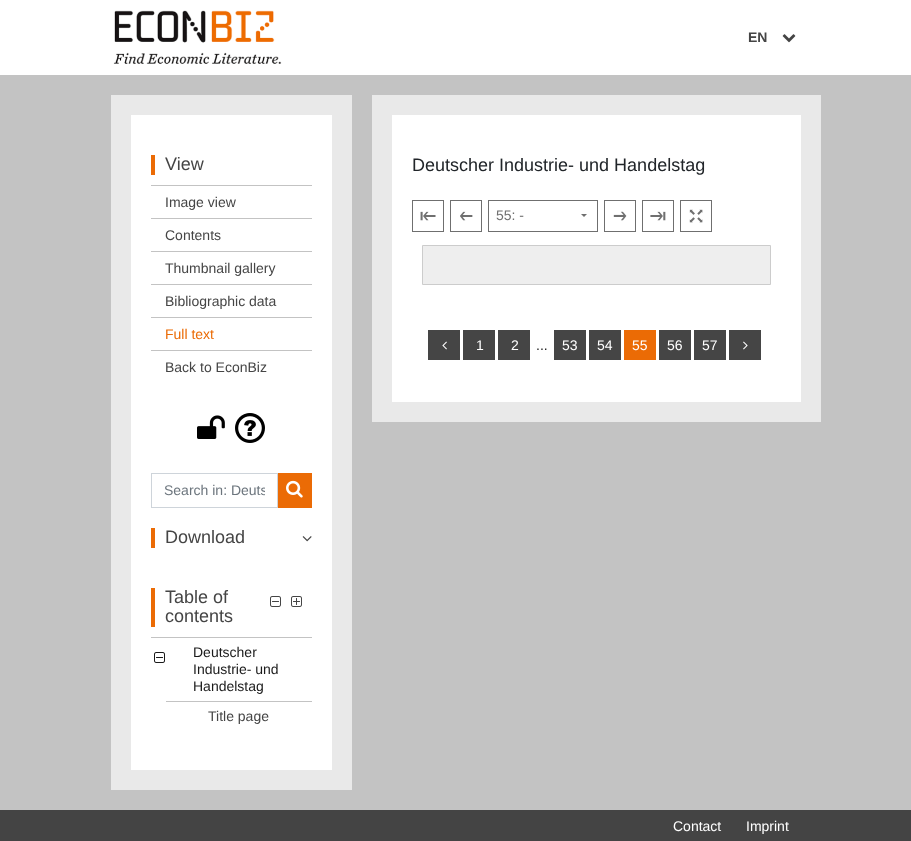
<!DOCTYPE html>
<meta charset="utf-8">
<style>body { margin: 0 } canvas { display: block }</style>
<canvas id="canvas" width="911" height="841"></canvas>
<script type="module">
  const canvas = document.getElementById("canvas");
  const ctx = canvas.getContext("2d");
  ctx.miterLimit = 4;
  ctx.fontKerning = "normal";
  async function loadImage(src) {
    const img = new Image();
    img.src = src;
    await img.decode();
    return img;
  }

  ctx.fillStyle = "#ffffff";
  ctx.fillRect(0, 0, 911, 841);
  ctx.drawImage(await loadImage("img1.png"), 113, 10, 169, 54);
  ctx.font = "bold 14px Liberation Sans";
  ctx.fillStyle = "#454545";
  ctx.fillText("EN", 748, 42);
  ctx.drawImage(await loadImage("img2.png"), 782, 34, 14, 9);
  ctx.fillStyle = "#c3c3c3";
  ctx.fillRect(0, 75, 911, 735);
  ctx.fillStyle = "#e9e9e9";
  ctx.fillRect(111, 95, 241, 695);
  ctx.fillStyle = "#ffffff";
  ctx.fillRect(131, 115, 201, 655);
  ctx.fillStyle = "#eb6b05";
  ctx.fillRect(151, 155, 4, 20);
  ctx.font = "18px Liberation Sans";
  ctx.fillStyle = "#454545";
  ctx.fillText("View", 165, 170);
  ctx.fillStyle = "#c3c3c3";
  ctx.fillRect(151, 185, 161, 1);
  ctx.font = "14px Liberation Sans";
  ctx.fillStyle = "#454545";
  ctx.fillText("Image view", 165, 207);
  ctx.fillStyle = "#c3c3c3";
  ctx.fillRect(151, 218, 161, 1);
  ctx.fillStyle = "#454545";
  ctx.fillText("Contents", 165, 240);
  ctx.fillStyle = "#c3c3c3";
  ctx.fillRect(151, 251, 161, 1);
  ctx.fillStyle = "#454545";
  ctx.fillText("Thumbnail gallery", 165, 273);
  ctx.fillStyle = "#c3c3c3";
  ctx.fillRect(151, 284, 161, 1);
  ctx.fillStyle = "#454545";
  ctx.fillText("Bibliographic data", 165, 306);
  ctx.fillStyle = "#c3c3c3";
  ctx.fillRect(151, 317, 161, 1);
  ctx.fillStyle = "#eb6b05";
  ctx.fillText("Full text", 165, 339);
  ctx.fillStyle = "#c3c3c3";
  ctx.fillRect(151, 350, 161, 1);
  ctx.fillStyle = "#454545";
  ctx.fillText("Back to EconBiz", 165, 372);
  ctx.drawImage(await loadImage("img3.png"), 197, 415, 28, 24);
  ctx.drawImage(await loadImage("img4.png"), 235, 413, 30, 30);
  ctx.strokeStyle = "#ced4da";
  ctx.strokeRect(151.5, 473.5, 126, 34);
  ctx.save();
  ctx.beginPath();
  ctx.rect(164, 482, 101, 16);
  ctx.clip();
  ctx.fillStyle = "#6c757d";
  ctx.fillText("Search in: Deuts", 164, 495);
  ctx.restore();
  ctx.fillStyle = "#eb6b05";
  ctx.fillRect(278, 473, 34, 35);
  ctx.drawImage(await loadImage("img5.png"), 286, 480, 17, 18);
  ctx.fillRect(151, 528, 4, 20);
  ctx.font = "18px Liberation Sans";
  ctx.fillStyle = "#454545";
  ctx.fillText("Download", 165, 543);
  ctx.drawImage(await loadImage("img6.png"), 302, 536, 10, 6);
  ctx.fillStyle = "#eb6b05";
  ctx.fillRect(151, 588, 4, 39);
  ctx.fillStyle = "#454545";
  ctx.fillText("Table of", 165, 603);
  ctx.fillText("contents", 165, 622);
  ctx.drawImage(await loadImage("img7.png"), 270, 596, 11, 11);
  ctx.drawImage(await loadImage("img8.png"), 291, 596, 11, 11);
  ctx.fillStyle = "#c3c3c3";
  ctx.fillRect(151, 637, 161, 1);
  ctx.drawImage(await loadImage("img9.png"), 154, 652, 11, 11);
  ctx.font = "14px Liberation Sans";
  ctx.fillStyle = "#1a1a1a";
  ctx.fillText("Deutscher", 193, 657);
  ctx.fillText("Industrie- und", 193, 674);
  ctx.fillText("Handelstag", 193, 691);
  ctx.fillStyle = "#c3c3c3";
  ctx.fillRect(166, 701, 146, 1);
  ctx.fillStyle = "#454545";
  ctx.fillText("Title page", 208, 721);
  ctx.fillStyle = "#e9e9e9";
  ctx.fillRect(372, 95, 449, 327);
  ctx.fillStyle = "#ffffff";
  ctx.fillRect(392, 115, 409, 287);
  ctx.font = "18px Liberation Sans";
  ctx.fillStyle = "#212529";
  ctx.fillText("Deutscher Industrie- und Handelstag", 412, 171);
  ctx.strokeStyle = "#6f6f6f";
  ctx.strokeRect(412.5, 200.5, 31, 31);
  ctx.drawImage(await loadImage("img10.png"), 420, 211, 16, 10);
  ctx.strokeRect(450.5, 200.5, 31, 31);
  ctx.drawImage(await loadImage("img11.png"), 460, 211, 13, 10);
  ctx.strokeRect(488.5, 200.5, 109, 31);
  ctx.font = "14px Liberation Sans";
  ctx.fillStyle = "#6f6f6f";
  ctx.fillText("55: -", 496, 220);
  ctx.beginPath();
  ctx.moveTo(581, 214);
  ctx.lineTo(587, 214);
  ctx.lineTo(584, 217);
  ctx.closePath();
  ctx.fill();
  ctx.strokeRect(604.5, 200.5, 31, 31);
  ctx.drawImage(await loadImage("img12.png"), 613, 211, 14, 10);
  ctx.strokeRect(642.5, 200.5, 31, 31);
  ctx.drawImage(await loadImage("img13.png"), 650, 211, 16, 10);
  ctx.strokeRect(680.5, 200.5, 31, 31);
  ctx.drawImage(await loadImage("img14.png"), 689, 209, 14, 14);
  ctx.fillStyle = "#eeeeee";
  ctx.beginPath();
  ctx.rect(422.5, 245.5, 348, 39);
  ctx.fill();
  ctx.strokeStyle = "#cccccc";
  ctx.stroke();
  ctx.fillStyle = "#454545";
  ctx.fillRect(428, 330, 32, 30);
  ctx.drawImage(await loadImage("img15.png"), 442, 341, 5, 9);
  ctx.fillRect(463, 330, 32, 30);
  ctx.fillStyle = "#ffffff";
  ctx.fillText("1", 476, 350);
  ctx.fillStyle = "#454545";
  ctx.fillRect(498, 330, 32, 30);
  ctx.fillStyle = "#ffffff";
  ctx.fillText("2", 511, 350);
  ctx.fillStyle = "#1a1a1a";
  ctx.fillText("...", 536, 350);
  ctx.fillStyle = "#454545";
  ctx.fillRect(554, 330, 32, 30);
  ctx.fillStyle = "#ffffff";
  ctx.fillText("53", 562, 350);
  ctx.fillStyle = "#454545";
  ctx.fillRect(589, 330, 32, 30);
  ctx.fillStyle = "#ffffff";
  ctx.fillText("54", 597, 350);
  ctx.fillStyle = "#eb6b05";
  ctx.fillRect(624, 330, 32, 30);
  ctx.fillStyle = "#ffffff";
  ctx.fillText("55", 632, 350);
  ctx.fillStyle = "#454545";
  ctx.fillRect(659, 330, 32, 30);
  ctx.fillStyle = "#ffffff";
  ctx.fillText("56", 667, 350);
  ctx.fillStyle = "#454545";
  ctx.fillRect(694, 330, 32, 30);
  ctx.fillStyle = "#ffffff";
  ctx.fillText("57", 702, 350);
  ctx.fillStyle = "#454545";
  ctx.fillRect(729, 330, 32, 30);
  ctx.drawImage(await loadImage("img16.png"), 743, 341, 5, 9);
  ctx.fillStyle = "#444444";
  ctx.fillRect(0, 810, 911, 31);
  ctx.fillStyle = "#ffffff";
  ctx.fillText("Contact", 673, 831);
  ctx.fillText("Imprint", 746, 831);
</script>
